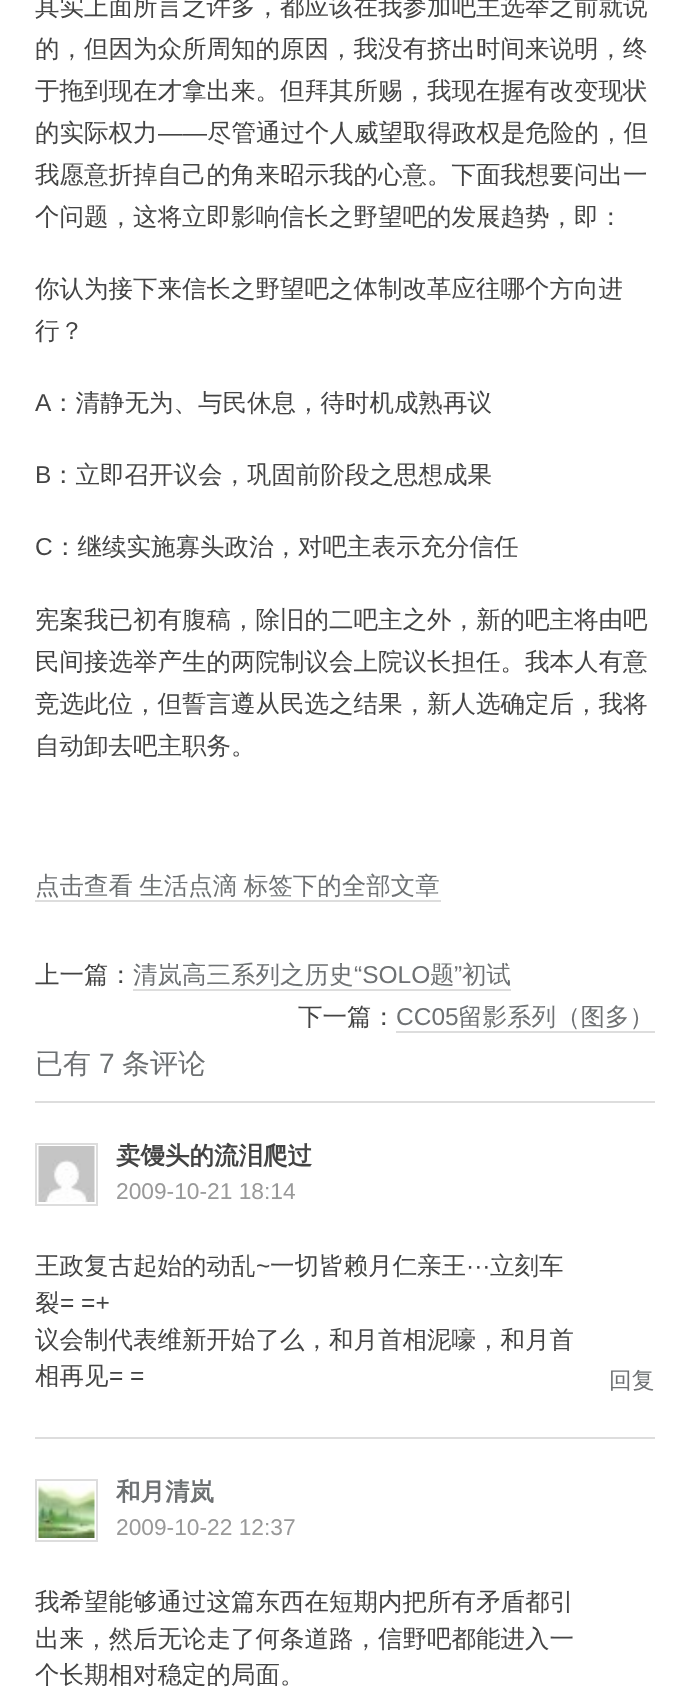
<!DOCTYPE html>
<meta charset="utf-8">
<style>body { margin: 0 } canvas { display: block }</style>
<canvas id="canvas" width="689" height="1698"></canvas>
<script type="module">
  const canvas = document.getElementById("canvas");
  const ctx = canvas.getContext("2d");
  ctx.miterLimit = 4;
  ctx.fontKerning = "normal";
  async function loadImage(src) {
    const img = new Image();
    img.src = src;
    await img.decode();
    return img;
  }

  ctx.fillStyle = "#ffffff";
  ctx.fillRect(0, 0, 689, 1698);
  ctx.font = "500 24.5px WenQuanYi Zen Hei";
  ctx.fillStyle = "#444444";
  ctx.fillText("其实上面所言之许多，都应该在我参加吧主选举之前就说", 35, 15);
  ctx.fillText("的，但因为众所周知的原因，我没有挤出时间来说明，终", 35, 57);
  ctx.fillText("于拖到现在才拿出来。但拜其所赐，我现在握有改变现状", 35, 99);
  ctx.fillText("的实际权力", 35, 141);
  ctx.font = "24.5px Liberation Sans";
  ctx.fillText("——", 158, 141);
  ctx.font = "500 24.5px WenQuanYi Zen Hei";
  ctx.fillText("尽管通过个人威望取得政权是危险的，但", 207, 141);
  ctx.fillText("我愿意折掉自己的角来昭示我的心意。下面我想要问出一", 35, 183);
  ctx.fillText("个问题，这将立即影响信长之野望吧的发展趋势，即：", 35, 225);
  ctx.fillText("你认为接下来信长之野望吧之体制改革应往哪个方向进", 35, 297);
  ctx.fillText("行？", 35, 339);
  ctx.font = "24.5px Liberation Sans";
  ctx.fillText("A", 35, 411);
  ctx.font = "500 24.5px WenQuanYi Zen Hei";
  ctx.fillText("：清静无为、与民休息，待时机成熟再议", 51, 411);
  ctx.font = "24.5px Liberation Sans";
  ctx.fillText("B", 35, 483);
  ctx.font = "500 24.5px WenQuanYi Zen Hei";
  ctx.fillText("：立即召开议会，巩固前阶段之思想成果", 51, 483);
  ctx.font = "24.5px Liberation Sans";
  ctx.fillText("C", 35, 555);
  ctx.font = "500 24.5px WenQuanYi Zen Hei";
  ctx.fillText("：继续实施寡头政治，对吧主表示充分信任", 53, 555);
  ctx.fillText("宪案我已初有腹稿，除旧的二吧主之外，新的吧主将由吧", 35, 628);
  ctx.fillText("民间接选举产生的两院制议会上院议长担任。我本人有意", 35, 670);
  ctx.fillText("竞选此位，但誓言遵从民选之结果，新人选确定后，我将", 35, 712);
  ctx.fillText("自动卸去吧主职务。", 35, 754);
  ctx.wordSpacing = "-1px";
  ctx.fillStyle = "#6e7173";
  ctx.fillText("点击查看 生活点滴 标签下的全部文章", 35, 894);
  ctx.fillStyle = "#dddddd";
  ctx.fillRect(35, 900, 406, 2);
  ctx.wordSpacing = "0px";
  ctx.fillStyle = "#444444";
  ctx.fillText("上一篇：", 35, 983);
  ctx.fillStyle = "#6e7173";
  ctx.fillText("清岚高三系列之历史", 133, 983);
  ctx.fillStyle = "#dddddd";
  ctx.fillRect(133, 989, 378, 2);
  ctx.font = "24.5px Liberation Sans";
  ctx.fillStyle = "#6e7173";
  ctx.fillText("“SOLO", 354, 983);
  ctx.font = "500 24.5px WenQuanYi Zen Hei";
  ctx.fillText("题", 430, 983);
  ctx.font = "24.5px Liberation Sans";
  ctx.fillText("”", 454, 983);
  ctx.font = "500 24.5px WenQuanYi Zen Hei";
  ctx.fillText("初试", 462, 983);
  ctx.fillStyle = "#444444";
  ctx.fillText("下一篇：", 298, 1025);
  ctx.font = "24.5px Liberation Sans";
  ctx.fillStyle = "#6e7173";
  ctx.fillText("CC05", 396, 1025);
  ctx.font = "500 24.5px WenQuanYi Zen Hei";
  ctx.fillText("留影系列（图多）", 458, 1025);
  ctx.fillStyle = "#dddddd";
  ctx.fillRect(396, 1031, 259, 2);
  ctx.fillRect(35, 1101, 620, 2);
  ctx.font = "500 28px WenQuanYi Zen Hei";
  ctx.fillStyle = "#6e7173";
  ctx.fillText("已有", 35, 1073);
  ctx.font = "28px Liberation Sans";
  ctx.fillText("7", 99, 1073);
  ctx.font = "500 28px WenQuanYi Zen Hei";
  ctx.fillText("条评论", 122, 1073);
  ctx.strokeStyle = "#dddddd";
  ctx.lineWidth = 2;
  ctx.strokeRect(36, 1144, 61, 61);
  ctx.drawImage(await loadImage("img1.png"), 38, 1146, 57, 56);
  ctx.font = "bold 24.5px WenQuanYi Zen Hei";
  ctx.fillStyle = "#444444";
  ctx.fillText("卖馒头的流泪爬过", 116, 1164);
  ctx.font = "22.75px Liberation Sans";
  ctx.fillStyle = "#999999";
  ctx.fillText("2009-10-21 18:14", 116, 1199);
  ctx.font = "500 24.5px WenQuanYi Zen Hei";
  ctx.fillStyle = "#444444";
  ctx.fillText("王政复古起始的动乱", 35, 1274);
  ctx.font = "24.5px Liberation Sans";
  ctx.fillText("~", 256, 1274);
  ctx.font = "500 24.5px WenQuanYi Zen Hei";
  ctx.fillText("一切皆赖月仁亲王", 270, 1274);
  ctx.font = "24.5px Liberation Sans";
  ctx.fillText("···", 466, 1274);
  ctx.font = "500 24.5px WenQuanYi Zen Hei";
  ctx.fillText("立刻车", 490, 1274);
  ctx.fillText("裂", 35, 1311);
  ctx.font = "24.5px Liberation Sans";
  ctx.fillText("= =+", 60, 1311);
  ctx.font = "500 24.5px WenQuanYi Zen Hei";
  ctx.fillText("议会制代表维新开始了么，和月首相泥嚎，和月首", 35, 1348);
  ctx.fillText("相再见", 35, 1384);
  ctx.font = "24.5px Liberation Sans";
  ctx.fillText("= =", 109, 1384);
  ctx.font = "500 22.75px WenQuanYi Zen Hei";
  ctx.fillStyle = "#6e7173";
  ctx.fillText("回复", 609, 1388);
  ctx.fillStyle = "#dddddd";
  ctx.fillRect(35, 1437, 620, 2);
  ctx.strokeRect(36, 1480, 61, 61);
  ctx.drawImage(await loadImage("img2.png"), 38, 1483, 57, 55);
  ctx.font = "bold 24.5px WenQuanYi Zen Hei";
  ctx.fillStyle = "#6e7173";
  ctx.fillText("和月清岚", 116, 1500);
  ctx.font = "22.75px Liberation Sans";
  ctx.fillStyle = "#999999";
  ctx.fillText("2009-10-22 12:37", 116, 1535);
  ctx.font = "500 24.5px WenQuanYi Zen Hei";
  ctx.fillStyle = "#444444";
  ctx.fillText("我希望能够通过这篇东西在短期内把所有矛盾都引", 35, 1610);
  ctx.fillText("出来，然后无论走了何条道路，信野吧都能进入一", 35, 1647);
  ctx.fillText("个长期相对稳定的局面。", 35, 1683);
</script>
